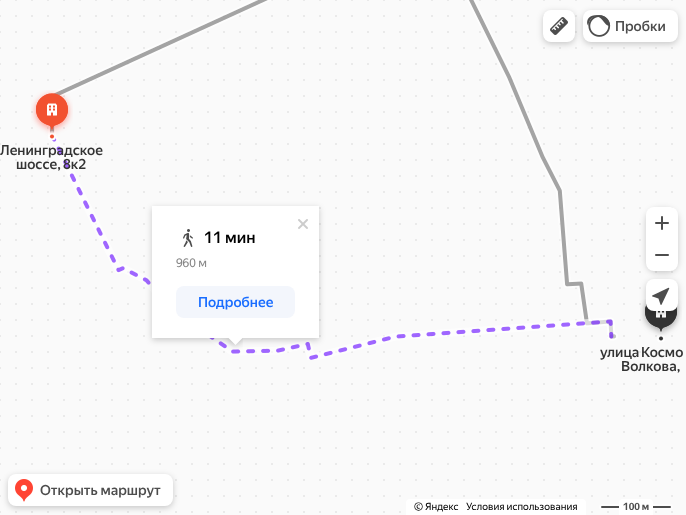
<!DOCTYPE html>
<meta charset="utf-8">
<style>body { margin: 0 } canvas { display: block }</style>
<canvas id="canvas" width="686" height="515"></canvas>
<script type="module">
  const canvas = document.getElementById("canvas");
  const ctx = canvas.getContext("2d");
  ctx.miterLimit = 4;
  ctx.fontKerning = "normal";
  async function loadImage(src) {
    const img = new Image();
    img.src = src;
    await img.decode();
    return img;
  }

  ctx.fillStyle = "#ffffff";
  ctx.fillRect(0, 0, 686, 515);
  ctx.drawImage(await loadImage("img1.png"), 0, 0, 686, 515);
  ctx.drawImage(await loadImage("img8.png"), 41, 0, 577, 360);
  ctx.fillStyle = "rgba(0, 0, 0, 0.2)";
  ctx.filter = "blur(3px)";
  ctx.beginPath();
  ctx.roundRect(543, 12, 32, 32, 8);
  ctx.fill();
  ctx.filter = "none";
  ctx.fillStyle = "#ffffff";
  ctx.beginPath();
  ctx.roundRect(543, 10, 32, 32, 8);
  ctx.fill();
  ctx.drawImage(await loadImage("img2.png"), 550, 17, 18, 18);
  ctx.fillStyle = "rgba(0, 0, 0, 0.2)";
  ctx.filter = "blur(3px)";
  ctx.beginPath();
  ctx.roundRect(583, 12, 95, 32, 8);
  ctx.fill();
  ctx.filter = "none";
  ctx.fillStyle = "#ffffff";
  ctx.beginPath();
  ctx.roundRect(583, 10, 95, 32, 8);
  ctx.fill();
  ctx.drawImage(await loadImage("img3.png"), 587, 15, 24, 22);
  ctx.font = "500 14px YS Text";
  ctx.fillStyle = "#4d4d4d";
  ctx.fillText("Пробки", 615, 31);
  ctx.fillStyle = "rgba(0, 0, 0, 0.2)";
  ctx.filter = "blur(3px)";
  ctx.beginPath();
  ctx.roundRect(646, 209, 32, 64, 12);
  ctx.fill();
  ctx.filter = "none";
  ctx.fillStyle = "#ffffff";
  ctx.beginPath();
  ctx.roundRect(646, 207, 32, 32, [8, 8, 0, 0]);
  ctx.fill();
  ctx.drawImage(await loadImage("img4.png"), 655, 216, 14, 14);
  ctx.beginPath();
  ctx.roundRect(646, 239, 32, 32, [0, 0, 8, 8]);
  ctx.fill();
  ctx.drawImage(await loadImage("img5.png"), 655, 254, 14, 2);
  ctx.drawImage(await loadImage("img11.png"), 640, 299, 42, 43);
  ctx.drawImage(await loadImage("img12.png"), 656, 311, 10, 7);
  ctx.fillStyle = "rgba(0, 0, 0, 0.2)";
  ctx.filter = "blur(3px)";
  ctx.beginPath();
  ctx.roundRect(646, 281, 32, 32, 8);
  ctx.fill();
  ctx.filter = "none";
  ctx.fillStyle = "#ffffff";
  ctx.beginPath();
  ctx.roundRect(646, 279, 32, 32, 8);
  ctx.fill();
  ctx.drawImage(await loadImage("img6.png"), 652, 287, 18, 18);
  ctx.fillStyle = "rgba(0, 0, 0, 0.2)";
  ctx.filter = "blur(3px)";
  ctx.beginPath();
  ctx.roundRect(8, 476, 165, 32, 8);
  ctx.fill();
  ctx.filter = "none";
  ctx.fillStyle = "#ffffff";
  ctx.beginPath();
  ctx.roundRect(8, 474, 165, 32, 8);
  ctx.fill();
  ctx.drawImage(await loadImage("img7.png"), 15, 479, 18, 23);
  ctx.fillStyle = "#4d4d4d";
  ctx.fillText("Открыть маршрут", 40, 495);
  ctx.fillStyle = "#ffffff";
  ctx.beginPath();
  ctx.roundRect(406, 499, 180, 16, [4, 4, 0, 0]);
  ctx.fill();
  ctx.font = "10px YS Text";
  ctx.fillStyle = "#000000";
  ctx.fillText("© Яндекс", 414, 510);
  ctx.fillText("Условия использования", 466, 510);
  ctx.fillStyle = "#fdfdfd";
  ctx.beginPath();
  ctx.roundRect(599, 504, 74, 6, 3);
  ctx.fill();
  ctx.fillStyle = "#4d4d4d";
  ctx.beginPath();
  ctx.roundRect(601, 506, 70, 2, 1);
  ctx.fill();
  ctx.fillStyle = "#ffffff";
  ctx.beginPath();
  ctx.roundRect(619, 499, 34, 16, [4, 4, 0, 0]);
  ctx.fill();
  ctx.font = "bold 10px YS Text";
  ctx.fillStyle = "#4d4d4d";
  ctx.fillText("100 м", 623, 510);
  ctx.drawImage(await loadImage("img9.png"), 31, 90, 42, 51);
  ctx.drawImage(await loadImage("img10.png"), 47, 103, 10, 13);
  ctx.font = "500 14px YS Text";
  ctx.fillStyle = "#333333";
  ctx.fillText("Ленинградское", 0, 155);
  ctx.fillText("шоссе,", 16, 169);
  ctx.fillText("8к2", 63, 169);
  ctx.fillText("улица", 600, 357);
  ctx.fillText("Космо", 641, 357);
  ctx.fillText("Волкова,", 621, 371);
  ctx.fillStyle = "rgba(0, 0, 0, 0.2)";
  ctx.filter = "blur(3px)";
  ctx.beginPath();
  ctx.rect(152, 208, 167, 132);
  ctx.fill();
  ctx.filter = "none";
  ctx.fillStyle = "#ffffff";
  ctx.fillRect(152, 206, 167, 132);
  ctx.drawImage(await loadImage("img13.png"), 298, 219, 10, 10);
  ctx.drawImage(await loadImage("img14.png"), 183, 229, 10, 18);
  ctx.font = "500 16px YS Text";
  ctx.fillStyle = "#000000";
  ctx.fillText("11 мин", 204, 243);
  ctx.font = "12px YS Text";
  ctx.fillStyle = "#878787";
  ctx.fillText("960 м", 176, 267);
  ctx.fillStyle = "#f3f6fc";
  ctx.beginPath();
  ctx.roundRect(176, 286, 119, 32, 8);
  ctx.fill();
  ctx.font = "500 14px YS Text";
  ctx.fillStyle = "#196dff";
  ctx.fillText("Подробнее", 198, 307);
  ctx.save();
  ctx.beginPath();
  ctx.rect(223, 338, 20, 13);
  ctx.clip();
  ctx.fillStyle = "rgba(0, 0, 0, 0.2)";
  ctx.filter = "blur(3px)";
  ctx.beginPath();
  ctx.rect(230, 335, 10, 10);
  ctx.fill();
  ctx.filter = "none";
  ctx.restore();
  ctx.save();
  ctx.beginPath();
  ctx.rect(223, 338, 20, 13);
  ctx.clip();
  ctx.fillStyle = "#ffffff";
  ctx.beginPath();
  ctx.moveTo(235.5, 331);
  ctx.lineTo(242.5, 338);
  ctx.lineTo(235.5, 345);
  ctx.lineTo(228.5, 338);
  ctx.closePath();
  ctx.fill();
  ctx.restore();
</script>
